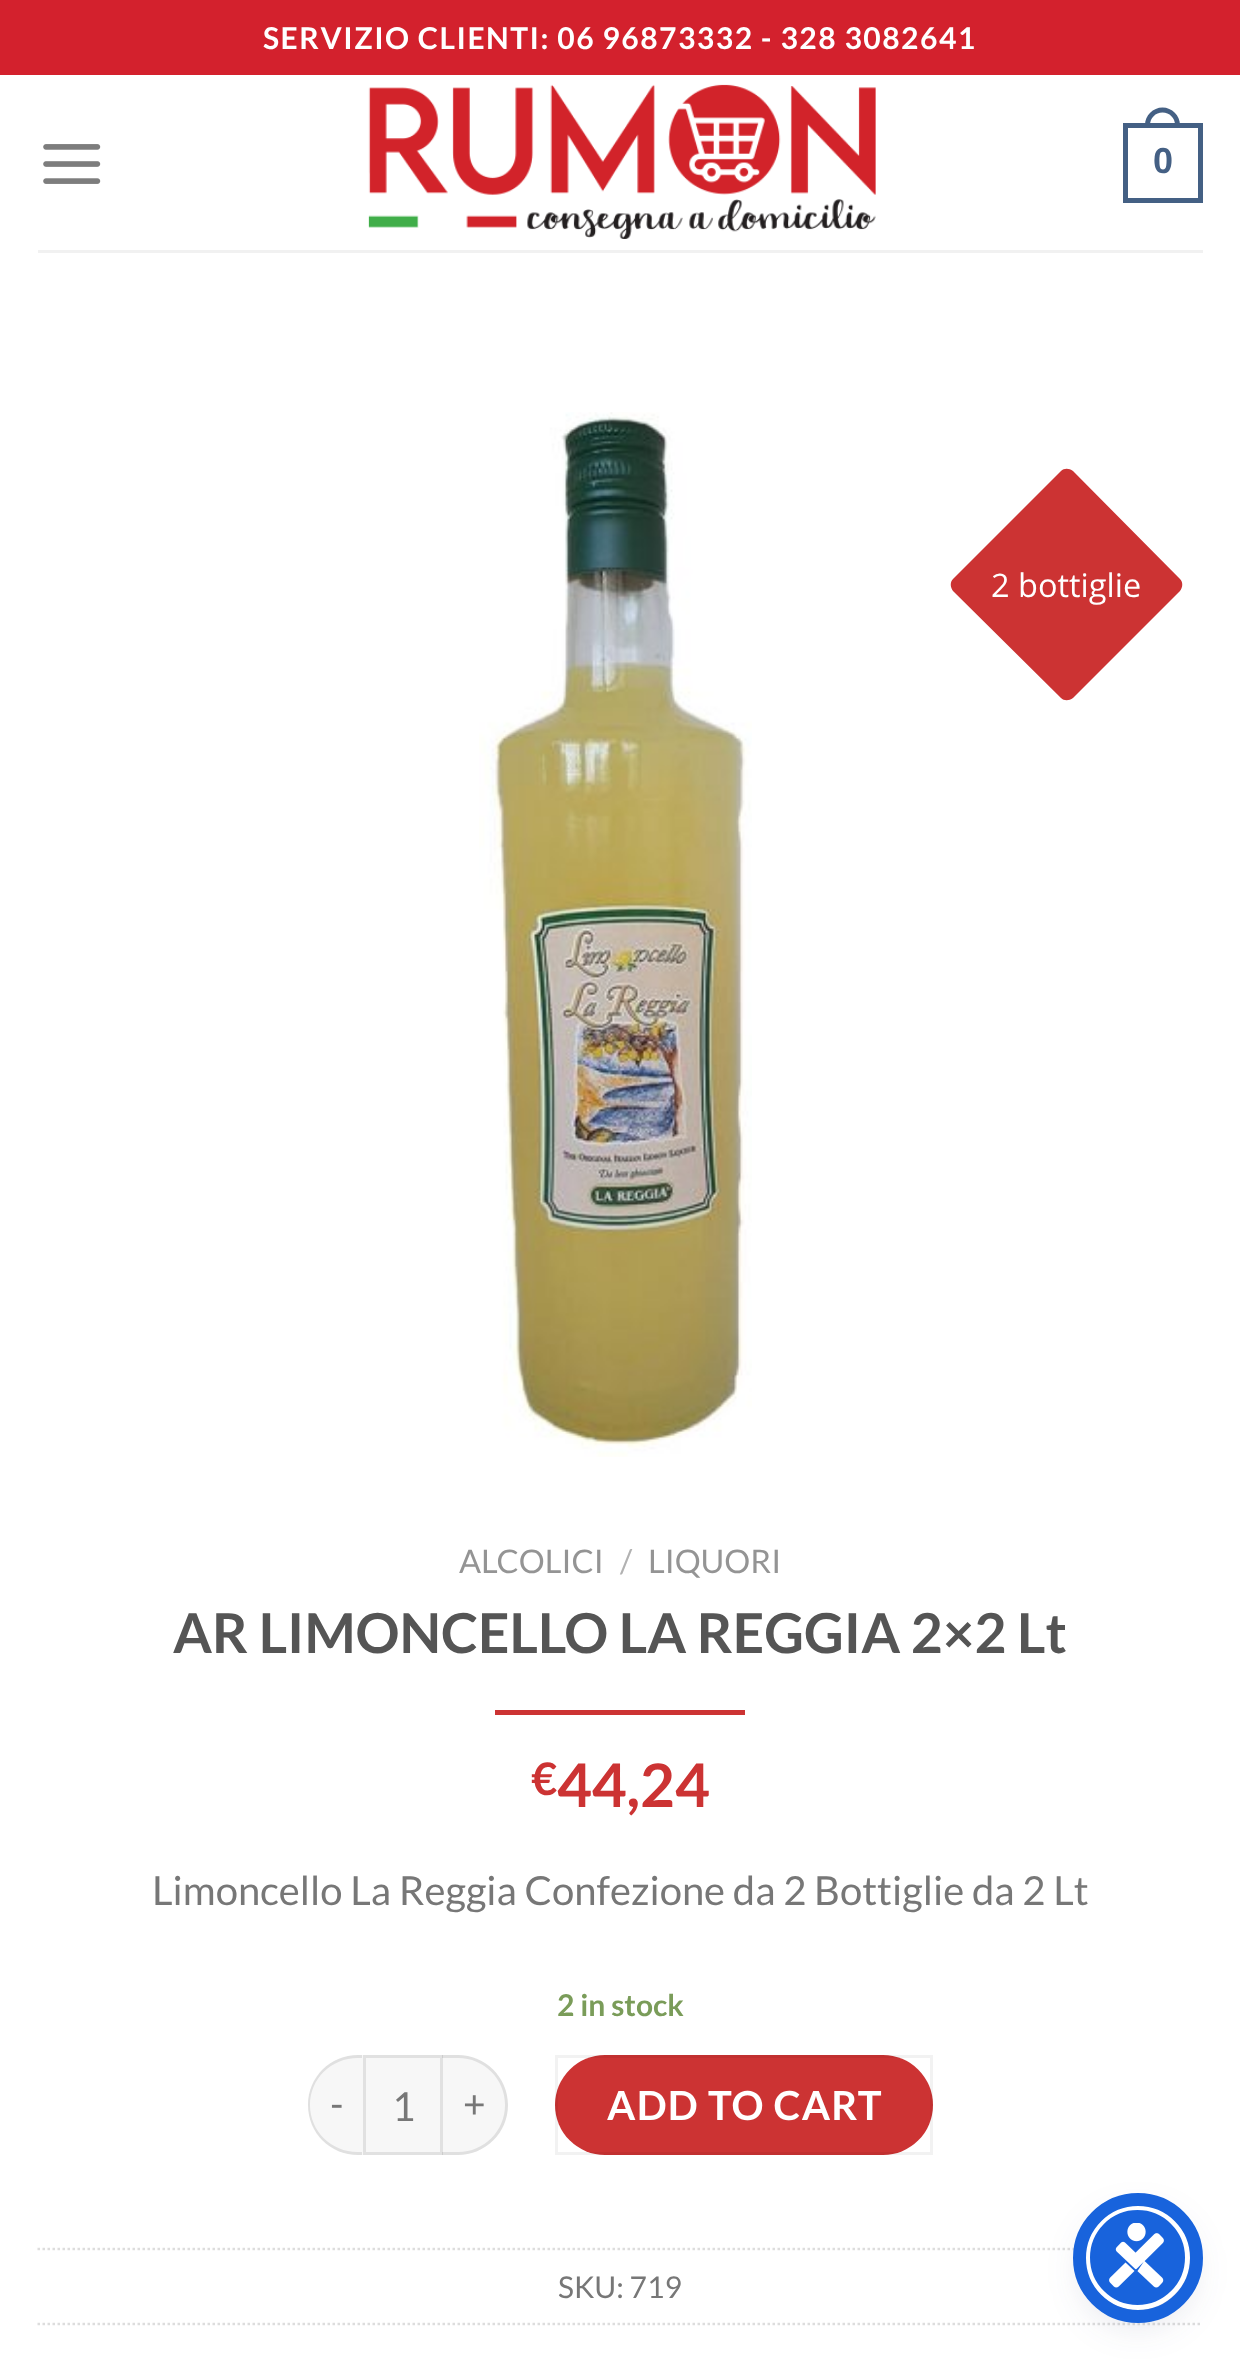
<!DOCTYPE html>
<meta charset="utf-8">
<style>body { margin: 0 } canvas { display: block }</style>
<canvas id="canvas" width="1240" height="2359"></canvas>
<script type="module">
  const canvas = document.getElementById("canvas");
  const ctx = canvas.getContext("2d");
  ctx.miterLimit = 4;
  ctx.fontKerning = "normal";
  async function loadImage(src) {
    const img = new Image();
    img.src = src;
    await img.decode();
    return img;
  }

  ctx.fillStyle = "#ffffff";
  ctx.fillRect(0, 0, 1240, 2359);
  ctx.fillStyle = "#d3212d";
  ctx.fillRect(0, 0, 1240, 75);
  ctx.letterSpacing = "1.5px";
  ctx.font = "bold 30px Lato";
  ctx.fillStyle = "#ffffff";
  ctx.fillText("SERVIZIO CLIENTI: 06 96873332 - 328 3082641", 263, 49);
  ctx.drawImage(await loadImage("img1.png"), 43, 144, 58, 40);
  ctx.drawImage(await loadImage("img2.png"), 368, 84, 508, 155);
  ctx.strokeStyle = "#446084";
  ctx.lineWidth = 5;
  ctx.strokeRect(1125.5, 125.5, 75, 75);
  ctx.fillStyle = "#446084";
  ctx.beginPath();
  ctx.moveTo(1162.5, 107.5);
  ctx.bezierCurveTo(1172, 107.5, 1180, 115.5, 1180, 125);
  ctx.lineTo(1180, 127.5);
  ctx.lineTo(1145, 127.5);
  ctx.lineTo(1145, 125);
  ctx.bezierCurveTo(1145, 115.5, 1153, 107.5, 1162.5, 107.5);
  ctx.closePath();
  ctx.moveTo(1162.5, 112.5);
  ctx.bezierCurveTo(1169.5, 112.5, 1175, 118, 1175, 125);
  ctx.lineTo(1175, 127.5);
  ctx.lineTo(1150, 127.5);
  ctx.lineTo(1150, 125);
  ctx.bezierCurveTo(1150, 118, 1155.5, 112.5, 1162.5, 112.5);
  ctx.closePath();
  ctx.fill("evenodd");
  ctx.letterSpacing = "0px";
  ctx.font = "bold 36px Liberation Sans";
  ctx.fillText("0", 1153, 173);
  ctx.fillStyle = "#f1f1f1";
  ctx.fillRect(38, 250, 1165, 3);
  ctx.drawImage(await loadImage("img3.png"), 479, 412, 273, 1045);
  ctx.fillStyle = "#cc3333";
  ctx.beginPath();
  ctx.moveTo(1073, 471);
  ctx.lineTo(1180, 579);
  ctx.bezierCurveTo(1183, 582, 1183, 587, 1180, 591);
  ctx.lineTo(1073, 698);
  ctx.bezierCurveTo(1069, 701, 1064, 701, 1061, 698);
  ctx.lineTo(953, 591);
  ctx.bezierCurveTo(950, 587, 950, 582, 953, 579);
  ctx.lineTo(1061, 471);
  ctx.bezierCurveTo(1064, 468, 1069, 468, 1073, 471);
  ctx.closePath();
  ctx.fill();
  ctx.font = "32.5px Open Sans";
  ctx.fillStyle = "#ffffff";
  ctx.fillText("2 bottiglie", 991, 597);
  ctx.font = "32.5px Lato";
  ctx.fillStyle = "#949494";
  ctx.fillText("ALCOLICI", 459, 1573);
  ctx.fillStyle = "#b2b2b2";
  ctx.fillText("/", 620, 1573);
  ctx.fillStyle = "#949494";
  ctx.fillText("LIQUORI", 648, 1573);
  ctx.font = "bold 55px Lato";
  ctx.fillStyle = "#555555";
  ctx.fillText("AR LIMONCELLO LA REGGIA 2×2 Lt", 173, 1653);
  ctx.fillStyle = "#cc3333";
  ctx.fillRect(495, 1710, 250, 5);
  ctx.font = "bold 45px Lato";
  ctx.fillText("€", 531, 1795);
  ctx.font = "bold 60px Lato";
  ctx.fillText("44,24", 557, 1807);
  ctx.font = "40px Lato";
  ctx.fillStyle = "#777777";
  ctx.fillText("Limoncello La Reggia Confezione da 2 Bottiglie da 2 Lt", 152, 1905);
  ctx.font = "bold 30px Lato";
  ctx.fillStyle = "#7a9c59";
  ctx.fillText("2 in stock", 557, 2016);
  ctx.fillStyle = "#f7f7f7";
  ctx.beginPath();
  ctx.roundRect(308, 2055, 55, 100, [50, 0, 0, 50]);
  ctx.fill();
  ctx.fillStyle = "rgba(0, 0, 0, 0.09)";
  ctx.beginPath();
  ctx.moveTo(358, 2055);
  ctx.lineTo(362, 2055);
  ctx.lineTo(362, 2155);
  ctx.lineTo(358, 2155);
  ctx.bezierCurveTo(330, 2155, 308, 2133, 308, 2105);
  ctx.bezierCurveTo(308, 2077, 330, 2055, 358, 2055);
  ctx.closePath();
  ctx.moveTo(358, 2058);
  ctx.lineTo(362, 2058);
  ctx.lineTo(362, 2152);
  ctx.lineTo(358, 2152);
  ctx.bezierCurveTo(331, 2152, 310, 2131, 310, 2105);
  ctx.bezierCurveTo(310, 2079, 331, 2058, 358, 2058);
  ctx.closePath();
  ctx.fill("evenodd");
  ctx.letterSpacing = "1px";
  ctx.font = "39px Lato";
  ctx.fillStyle = "#777777";
  ctx.fillText("-", 330, 2118);
  ctx.fillStyle = "#f7f7f7";
  ctx.beginPath();
  ctx.rect(364.5, 2056.5, 77, 97);
  ctx.fill();
  ctx.strokeStyle = "#e1e1e1";
  ctx.lineWidth = 3;
  ctx.stroke();
  ctx.letterSpacing = "0px";
  ctx.font = "40px Lato";
  ctx.fillStyle = "#777777";
  ctx.fillText("1", 392, 2121);
  ctx.fillStyle = "#f7f7f7";
  ctx.beginPath();
  ctx.roundRect(443, 2055, 65, 100, [0, 50, 50, 0]);
  ctx.fill();
  ctx.fillStyle = "rgba(0, 0, 0, 0.09)";
  ctx.beginPath();
  ctx.moveTo(442, 2055);
  ctx.lineTo(458, 2055);
  ctx.bezierCurveTo(485, 2055, 508, 2077, 508, 2105);
  ctx.bezierCurveTo(508, 2133, 485, 2155, 458, 2155);
  ctx.lineTo(442, 2155);
  ctx.closePath();
  ctx.moveTo(442, 2058);
  ctx.lineTo(458, 2058);
  ctx.bezierCurveTo(484, 2058, 505, 2079, 505, 2105);
  ctx.bezierCurveTo(505, 2131, 484, 2152, 458, 2152);
  ctx.lineTo(442, 2152);
  ctx.closePath();
  ctx.fill("evenodd");
  ctx.letterSpacing = "1px";
  ctx.font = "39px Lato";
  ctx.fillStyle = "#777777";
  ctx.fillText("+", 463, 2118);
  ctx.fillStyle = "#cc3333";
  ctx.beginPath();
  ctx.roundRect(555, 2055, 378, 100, 50);
  ctx.fill();
  ctx.strokeStyle = "rgba(0, 0, 0, 0.05)";
  ctx.strokeRect(556.5, 2056.5, 375, 97);
  ctx.letterSpacing = "1.25px";
  ctx.font = "bold 40px Lato";
  ctx.fillStyle = "#ffffff";
  ctx.fillText("ADD TO CART", 607, 2120);
  ctx.beginPath();
  ctx.moveTo(37.5, 2249);
  ctx.lineTo(1202.5, 2249);
  ctx.strokeStyle = "#dddddd";
  ctx.lineWidth = 2.5;
  ctx.setLineDash([2.5, 2.5]);
  ctx.stroke();
  ctx.letterSpacing = "0px";
  ctx.font = "30px Lato";
  ctx.fillStyle = "#777777";
  ctx.fillText("SKU: 719", 558, 2298);
  ctx.beginPath();
  ctx.moveTo(37.5, 2324);
  ctx.lineTo(1202.5, 2324);
  ctx.stroke();
  ctx.fillStyle = "rgba(93, 100, 148, 0.2)";
  ctx.filter = "blur(5px)";
  ctx.beginPath();
  ctx.roundRect(1085, 2210, 105, 105, 52.5);
  ctx.fill();
  ctx.filter = "none";
  ctx.fillStyle = "rgba(37, 44, 97, 0.15)";
  ctx.filter = "blur(19px)";
  ctx.beginPath();
  ctx.roundRect(1085, 2218, 105, 105, 52.5);
  ctx.fill();
  ctx.filter = "none";
  ctx.fillStyle = "#1863dc";
  ctx.beginPath();
  ctx.arc(1137.5, 2257.5, 50, 0, Math.PI * 2);
  ctx.fill();
  ctx.strokeStyle = "#ffffff";
  ctx.lineWidth = 5;
  ctx.setLineDash([]);
  ctx.stroke();
  ctx.beginPath();
  ctx.arc(1138, 2258, 58.5, 0, Math.PI * 2);
  ctx.strokeStyle = "#1863dc";
  ctx.lineWidth = 13;
  ctx.stroke();
  ctx.drawImage(await loadImage("img4.png"), 1109, 2223, 55, 65);
</script>
